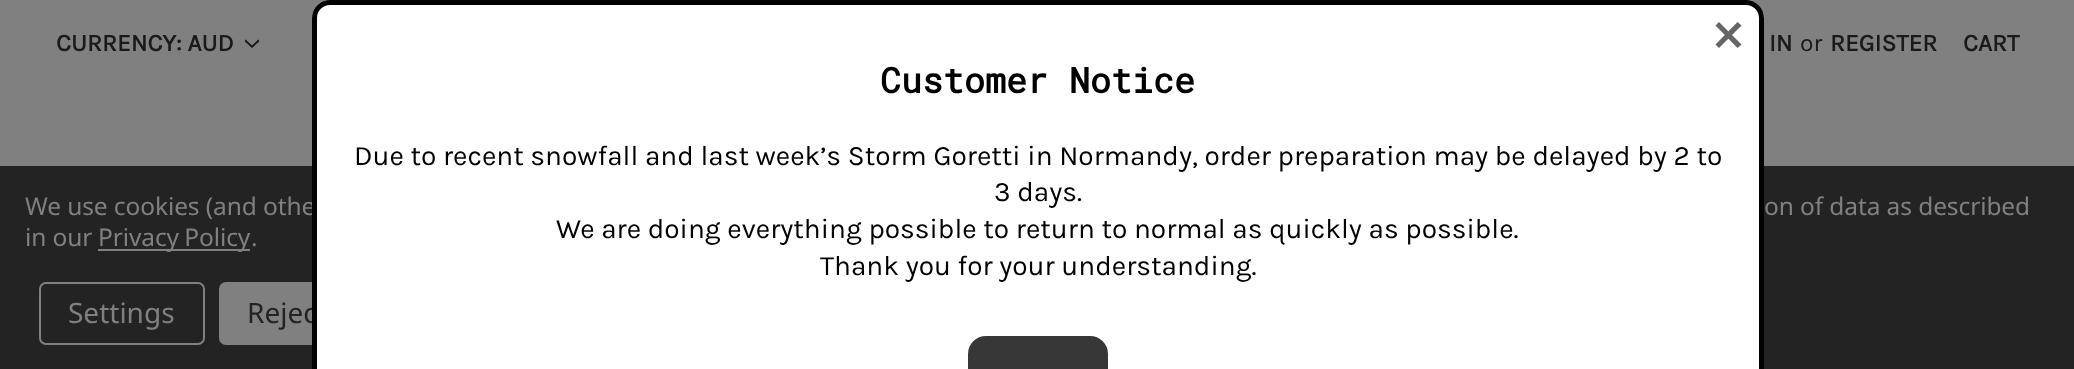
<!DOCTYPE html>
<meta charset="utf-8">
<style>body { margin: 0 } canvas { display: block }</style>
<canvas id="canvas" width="2074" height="369"></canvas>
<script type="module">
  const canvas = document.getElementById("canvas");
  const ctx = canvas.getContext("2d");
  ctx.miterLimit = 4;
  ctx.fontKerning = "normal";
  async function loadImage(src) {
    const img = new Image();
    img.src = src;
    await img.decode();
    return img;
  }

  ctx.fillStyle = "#808080";
  ctx.fillRect(0, 0, 2074, 369);
  ctx.font = "bold 24.5px Karla";
  ctx.fillStyle = "#1a1a1a";
  ctx.fillText("CURRENCY: AUD", 56, 51);
  ctx.drawImage(await loadImage("img1.png"), 245, 39, 14, 9);
  ctx.fillText("IN", 1769, 51);
  ctx.font = "24.5px Karla";
  ctx.fillText("or", 1800, 51);
  ctx.font = "bold 24.5px Karla";
  ctx.fillText("REGISTER", 1830, 51);
  ctx.fillText("CART", 1963, 51);
  ctx.fillStyle = "#232323";
  ctx.fillRect(0, 166, 2074, 203);
  ctx.letterSpacing = "-0.1px";
  ctx.font = "24.5px Noto Sans";
  ctx.fillStyle = "#808080";
  ctx.fillText("We use cookies (and othe", 25, 215);
  ctx.beginPath();
  ctx.roundRect(219, 282, 173, 63, 7);
  ctx.fill();
  ctx.letterSpacing = "0px";
  ctx.font = "28px Noto Sans";
  ctx.fillStyle = "#232323";
  ctx.fillText("Rejec", 247, 323);
  ctx.fillStyle = "#ffffff";
  ctx.beginPath();
  ctx.roundRect(312, 0, 1452, 369, [18, 18, 0, 0]);
  ctx.fill();
  ctx.beginPath();
  ctx.roundRect(314.5, 2.5, 1447, 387, 15.5);
  ctx.strokeStyle = "#000000";
  ctx.lineWidth = 5;
  ctx.stroke();
  ctx.fillStyle = "#666666";
  ctx.beginPath();
  ctx.moveTo(1737.5, 22);
  ctx.lineTo(1741.5, 25.5);
  ctx.lineTo(1719, 48);
  ctx.lineTo(1715.5, 44.5);
  ctx.closePath();
  ctx.fill();
  ctx.beginPath();
  ctx.moveTo(1715.5, 25.5);
  ctx.lineTo(1719, 22);
  ctx.lineTo(1741.5, 44.5);
  ctx.lineTo(1737.5, 48);
  ctx.closePath();
  ctx.fill();
  ctx.font = "bold 35px Roboto Mono";
  ctx.fillStyle = "#000000";
  ctx.fillText("Customer Notice", 880, 93);
  ctx.font = "28px Karla";
  ctx.fillText("Due to recent snowfall and last week’s Storm Goretti in Normandy, order preparation may be delayed by 2 to", 354, 165);
  ctx.fillText("3 days.", 994, 201);
  ctx.fillText("We are doing everything possible to return to normal as quickly as possible.", 556, 238);
  ctx.fillText("Thank you for your understanding.", 820, 275);
  ctx.fillStyle = "#373737";
  ctx.beginPath();
  ctx.roundRect(968, 336, 140, 33, [18, 18, 0, 0]);
  ctx.fill();
  ctx.letterSpacing = "-0.1px";
  ctx.font = "24.5px Noto Sans";
  ctx.fillStyle = "#808080";
  ctx.fillText("on of data as described", 1764, 215);
  ctx.fillText("in our", 25, 246);
  ctx.fillRect(98, 249, 152, 2);
  ctx.wordSpacing = "-1px";
  ctx.fillText("Privacy Policy", 98, 246);
  ctx.wordSpacing = "0px";
  ctx.fillText(".", 251, 246);
  ctx.beginPath();
  ctx.roundRect(40, 283, 164, 61, 6);
  ctx.strokeStyle = "#808080";
  ctx.lineWidth = 2;
  ctx.stroke();
  ctx.letterSpacing = "0px";
  ctx.font = "28px Noto Sans";
  ctx.fillText("Settings", 68, 323);
</script>
